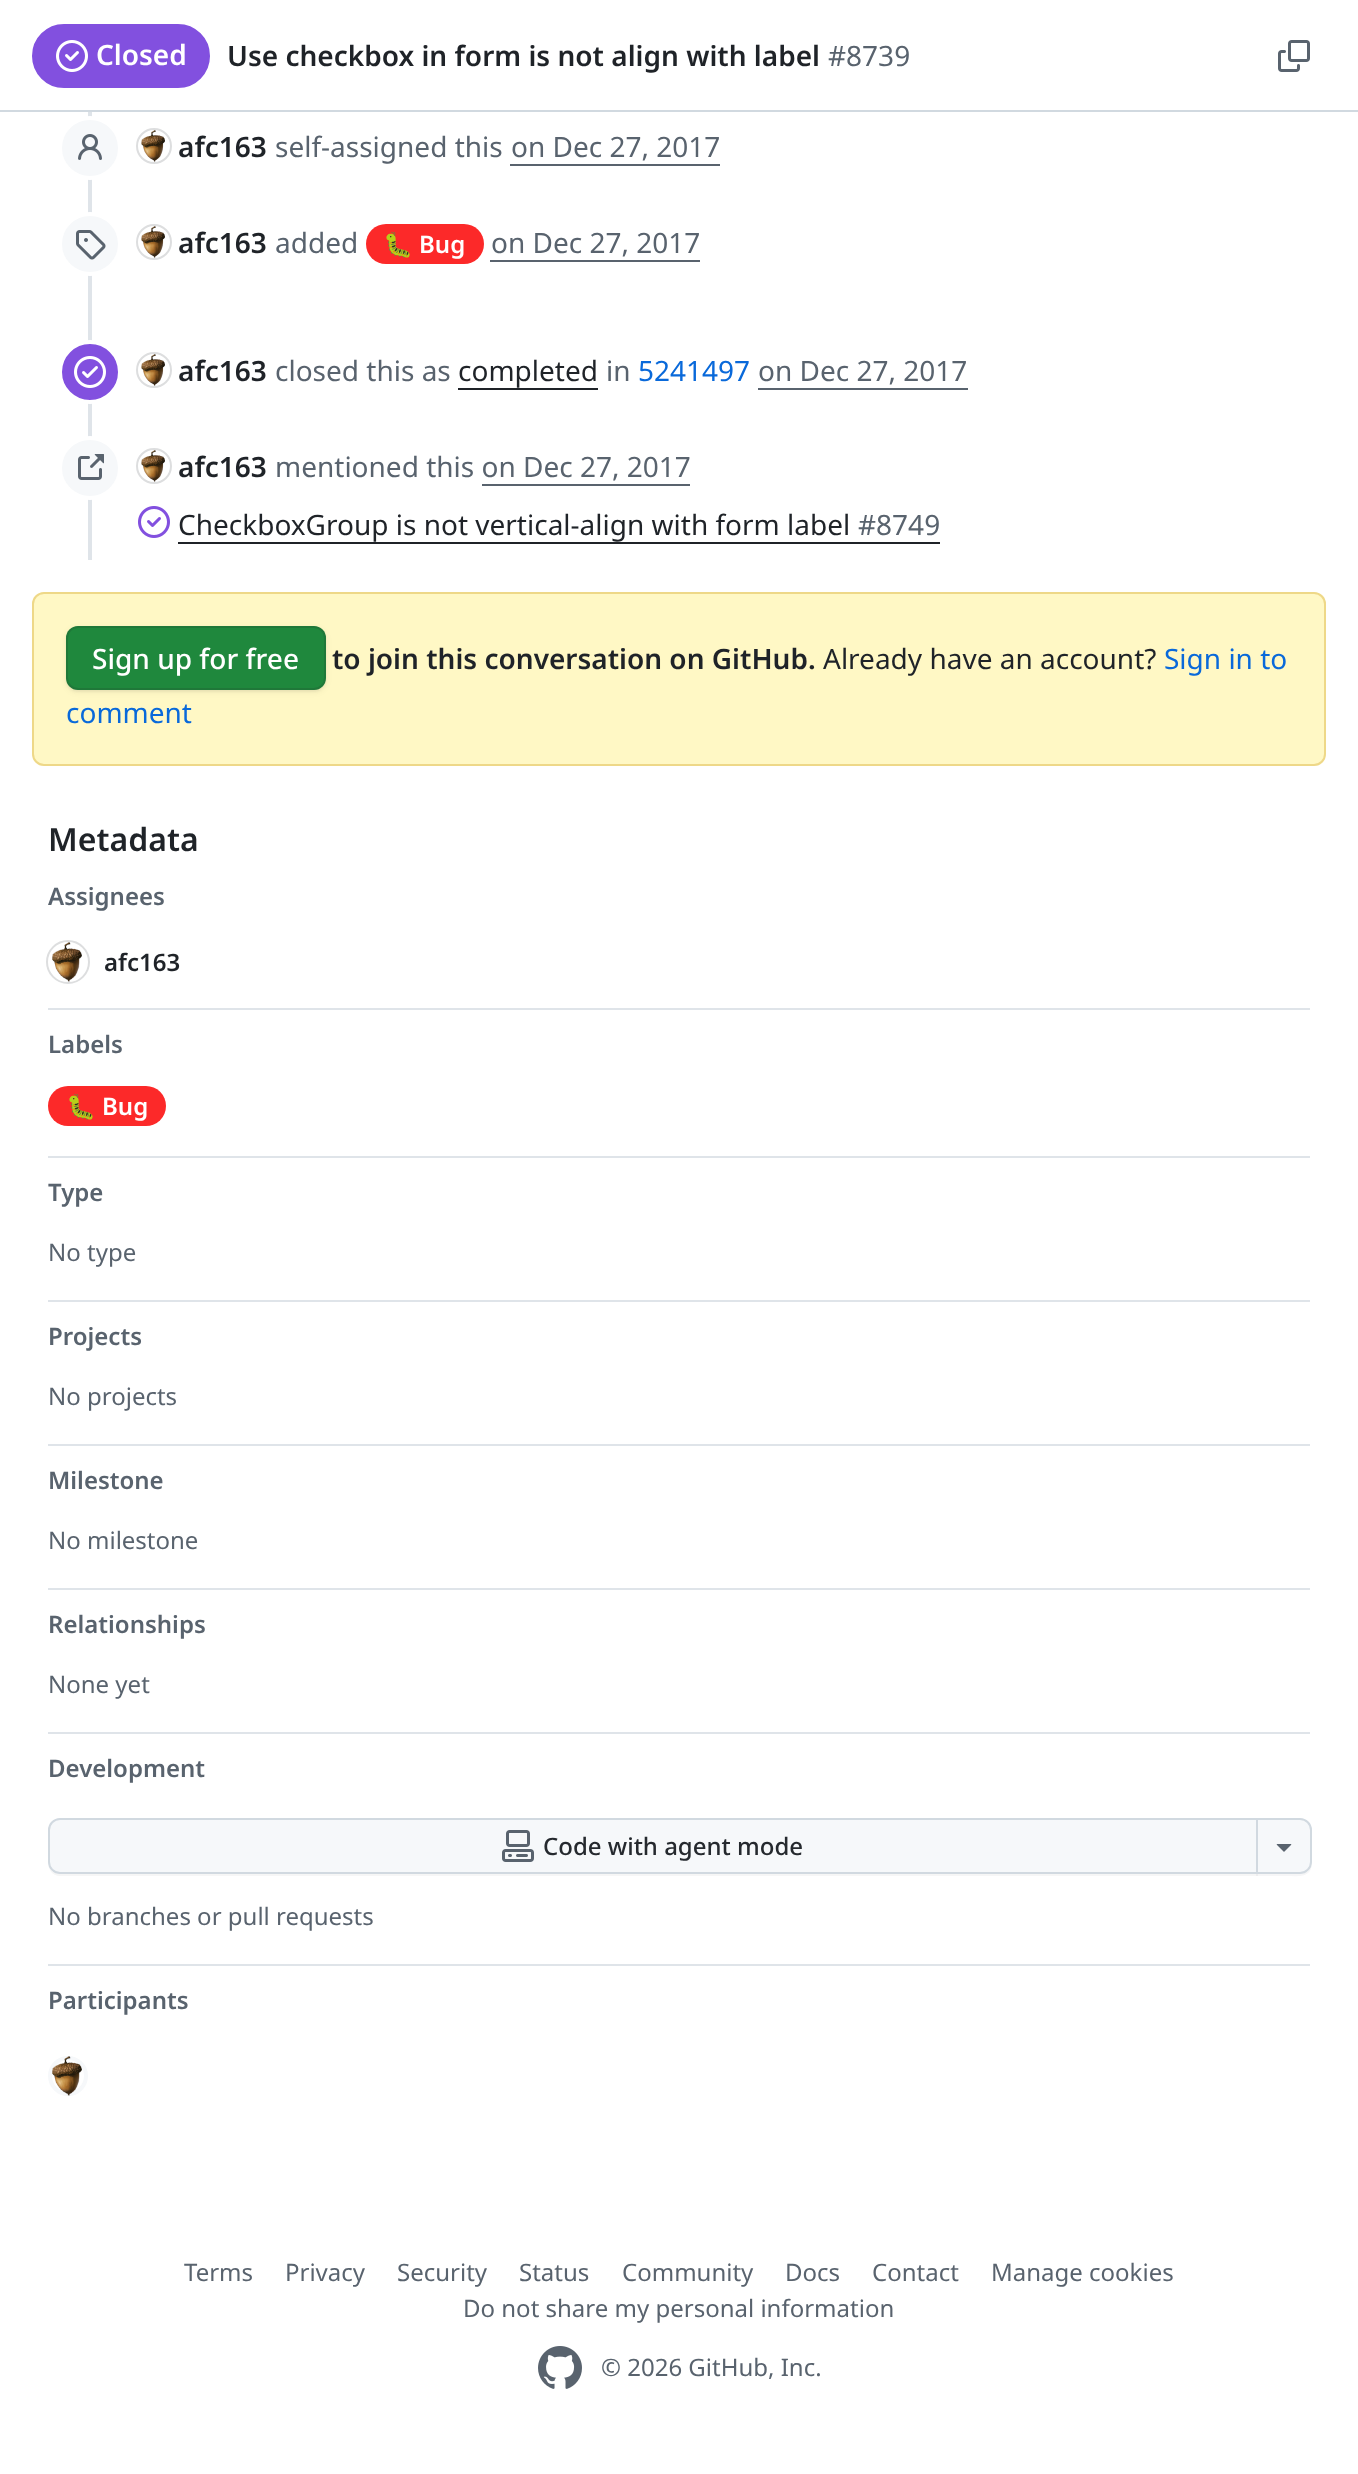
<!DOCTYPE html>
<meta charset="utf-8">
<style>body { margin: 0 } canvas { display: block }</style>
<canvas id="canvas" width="1358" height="2474"></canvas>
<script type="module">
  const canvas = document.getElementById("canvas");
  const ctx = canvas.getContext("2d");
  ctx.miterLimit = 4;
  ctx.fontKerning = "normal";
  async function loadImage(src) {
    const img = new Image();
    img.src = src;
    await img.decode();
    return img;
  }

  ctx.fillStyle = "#ffffff";
  ctx.fillRect(0, 0, 1358, 2474);
  ctx.fillStyle = "#d1d9e0";
  ctx.fillRect(0, 110, 1358, 2);
  ctx.fillStyle = "#8250df";
  ctx.beginPath();
  ctx.roundRect(33, 25, 176, 62, 31);
  ctx.fill();
  ctx.strokeStyle = "#8250df";
  ctx.lineWidth = 2;
  ctx.stroke();
  ctx.drawImage(await loadImage("img1.png"), 56, 40, 32, 32);
  ctx.font = "600 28px Noto Sans";
  ctx.fillStyle = "#ffffff";
  ctx.fillText("Closed", 96, 65);
  ctx.fillStyle = "#1f2328";
  ctx.fillText("Use checkbox in form is not align with label", 227, 66);
  ctx.font = "28px Noto Sans";
  ctx.fillStyle = "#59636e";
  ctx.fillText("#8739", 828, 66);
  ctx.drawImage(await loadImage("img2.png"), 1278, 40, 32, 32);
  ctx.fillStyle = "#dfe4e9";
  ctx.fillRect(88, 112, 4, 180);
  ctx.fillStyle = "#f6f8fa";
  ctx.beginPath();
  ctx.arc(90, 148, 30, 0, Math.PI * 2);
  ctx.fill();
  ctx.strokeStyle = "#ffffff";
  ctx.lineWidth = 4;
  ctx.stroke();
  ctx.drawImage(await loadImage("img3.png"), 78, 134, 24, 26);
  ctx.beginPath();
  ctx.arc(154, 146, 17, 0, Math.PI * 2);
  ctx.strokeStyle = "#dddedf";
  ctx.lineWidth = 2;
  ctx.stroke();
  ctx.drawImage(await loadImage("img4.png"), 141, 130, 24, 32);
  ctx.font = "600 28px Noto Sans";
  ctx.fillStyle = "#1f2328";
  ctx.fillText("afc163", 178, 157);
  ctx.font = "28px Noto Sans";
  ctx.fillStyle = "#59636e";
  ctx.fillText("self-assigned this", 275, 157);
  ctx.fillText("on Dec 27, 2017", 511, 157);
  ctx.fillRect(510, 164, 210, 2);
  ctx.fillStyle = "#f6f8fa";
  ctx.beginPath();
  ctx.arc(90, 244, 30, 0, Math.PI * 2);
  ctx.fill();
  ctx.strokeStyle = "#ffffff";
  ctx.lineWidth = 4;
  ctx.stroke();
  ctx.drawImage(await loadImage("img5.png"), 76, 230, 30, 30);
  ctx.beginPath();
  ctx.arc(154, 242, 17, 0, Math.PI * 2);
  ctx.strokeStyle = "#dddedf";
  ctx.lineWidth = 2;
  ctx.stroke();
  ctx.drawImage(await loadImage("img4.png"), 141, 226, 24, 32);
  ctx.font = "600 28px Noto Sans";
  ctx.fillStyle = "#1f2328";
  ctx.fillText("afc163", 178, 253);
  ctx.font = "28px Noto Sans";
  ctx.fillStyle = "#59636e";
  ctx.fillText("added", 275, 253);
  ctx.fillStyle = "#fc2929";
  ctx.beginPath();
  ctx.roundRect(366, 224, 118, 40, 20);
  ctx.fill();
  ctx.save();
  ctx.beginPath();
  ctx.rect(384, 224, 82, 40);
  ctx.clip();
  ctx.font = "bold 24px Noto Color Emoji";
  ctx.fillStyle = "#ffffff";
  ctx.fillText("🐛", 383, 253);
  ctx.restore();
  ctx.font = "600 24px Noto Sans";
  ctx.fillStyle = "#ffffff";
  ctx.fillText("Bug", 419, 253);
  ctx.font = "28px Noto Sans";
  ctx.fillStyle = "#59636e";
  ctx.fillText("on Dec 27, 2017", 491, 253);
  ctx.fillRect(490, 260, 210, 2);
  ctx.fillStyle = "#dfe4e9";
  ctx.fillRect(88, 292, 4, 268);
  ctx.fillStyle = "#8250df";
  ctx.beginPath();
  ctx.arc(90, 372, 30, 0, Math.PI * 2);
  ctx.fill();
  ctx.strokeStyle = "#ffffff";
  ctx.lineWidth = 4;
  ctx.stroke();
  ctx.drawImage(await loadImage("img6.png"), 74, 356, 32, 32);
  ctx.beginPath();
  ctx.arc(154, 370, 17, 0, Math.PI * 2);
  ctx.strokeStyle = "#dddedf";
  ctx.lineWidth = 2;
  ctx.stroke();
  ctx.drawImage(await loadImage("img4.png"), 141, 354, 24, 32);
  ctx.font = "600 28px Noto Sans";
  ctx.fillStyle = "#1f2328";
  ctx.fillText("afc163", 178, 381);
  ctx.font = "28px Noto Sans";
  ctx.fillStyle = "#59636e";
  ctx.fillText("closed this as", 275, 381);
  ctx.fillStyle = "#1f2328";
  ctx.fillText("completed", 458, 381);
  ctx.fillRect(458, 388, 140, 2);
  ctx.fillStyle = "#59636e";
  ctx.fillText("in", 606, 381);
  ctx.fillStyle = "#0969da";
  ctx.fillText("5241497", 638, 381);
  ctx.fillStyle = "#59636e";
  ctx.fillText("on Dec 27, 2017", 758, 381);
  ctx.fillRect(758, 388, 210, 2);
  ctx.fillStyle = "#f6f8fa";
  ctx.beginPath();
  ctx.arc(90, 468, 30, 0, Math.PI * 2);
  ctx.fill();
  ctx.strokeStyle = "#ffffff";
  ctx.lineWidth = 4;
  ctx.stroke();
  ctx.drawImage(await loadImage("img7.png"), 78, 454, 26, 26);
  ctx.beginPath();
  ctx.arc(154, 466, 17, 0, Math.PI * 2);
  ctx.strokeStyle = "#dddedf";
  ctx.lineWidth = 2;
  ctx.stroke();
  ctx.drawImage(await loadImage("img4.png"), 141, 450, 24, 32);
  ctx.font = "600 28px Noto Sans";
  ctx.fillStyle = "#1f2328";
  ctx.fillText("afc163", 178, 477);
  ctx.font = "28px Noto Sans";
  ctx.fillStyle = "#59636e";
  ctx.fillText("mentioned this on Dec 27, 2017", 275, 477);
  ctx.fillRect(482, 484, 208, 2);
  ctx.drawImage(await loadImage("img8.png"), 138, 506, 32, 32);
  ctx.fillStyle = "#1f2328";
  ctx.fillText("CheckboxGroup is not vertical-align with form label", 178, 535);
  ctx.fillRect(178, 542, 762, 2);
  ctx.fillStyle = "#59636e";
  ctx.fillText("#8749", 858, 535);
  ctx.fillStyle = "#fff8c5";
  ctx.beginPath();
  ctx.roundRect(32, 592, 1294, 174, 12);
  ctx.fill();
  ctx.beginPath();
  ctx.roundRect(33, 593, 1292, 172, 11);
  ctx.strokeStyle = "rgba(212, 167, 44, 0.4)";
  ctx.stroke();
  ctx.fillStyle = "rgba(31, 35, 40, 0.06)";
  ctx.filter = "blur(3px)";
  ctx.beginPath();
  ctx.roundRect(66, 628, 260, 64, 12);
  ctx.fill();
  ctx.filter = "none";
  ctx.filter = "blur(1px)";
  ctx.beginPath();
  ctx.roundRect(66, 628, 260, 64, 12);
  ctx.fill();
  ctx.filter = "none";
  ctx.fillStyle = "#1f883d";
  ctx.beginPath();
  ctx.roundRect(66, 626, 260, 64, 12);
  ctx.fill();
  ctx.beginPath();
  ctx.roundRect(67, 627, 258, 62, 11);
  ctx.strokeStyle = "rgba(31, 35, 40, 0.15)";
  ctx.stroke();
  ctx.font = "500 28px Noto Sans";
  ctx.fillStyle = "#ffffff";
  ctx.fillText("Sign up for free", 92, 669);
  ctx.font = "600 28px Noto Sans";
  ctx.fillStyle = "#1f2328";
  ctx.fillText("to join this conversation on GitHub.", 332, 669);
  ctx.font = "28px Noto Sans";
  ctx.fillText("Already have an account?", 823, 669);
  ctx.fillStyle = "#0969da";
  ctx.fillText("Sign in to", 1164, 669);
  ctx.fillText("comment", 66, 723);
  ctx.font = "600 32px Noto Sans";
  ctx.fillStyle = "#1f2328";
  ctx.fillText("Metadata", 48, 851);
  ctx.font = "600 24px Noto Sans";
  ctx.fillStyle = "#59636e";
  ctx.fillText("Assignees", 48, 905);
  ctx.beginPath();
  ctx.arc(68, 962, 21, 0, Math.PI * 2);
  ctx.strokeStyle = "#dddedf";
  ctx.stroke();
  ctx.drawImage(await loadImage("img9.png"), 52, 942, 30, 40);
  ctx.fillStyle = "#1f2328";
  ctx.fillText("afc163", 104, 971);
  ctx.fillStyle = "#dfe4e9";
  ctx.fillRect(48, 1008, 1262, 2);
  ctx.fillStyle = "#59636e";
  ctx.fillText("Labels", 48, 1053);
  ctx.fillStyle = "#fc2929";
  ctx.beginPath();
  ctx.roundRect(48, 1086, 118, 40, 20);
  ctx.fill();
  ctx.font = "bold 24px Noto Color Emoji";
  ctx.fillStyle = "#ffffff";
  ctx.fillText("🐛", 66, 1115);
  ctx.font = "600 24px Noto Sans";
  ctx.fillText("Bug", 102, 1115);
  ctx.fillStyle = "#dfe4e9";
  ctx.fillRect(48, 1156, 1262, 2);
  ctx.fillStyle = "#59636e";
  ctx.fillText("Type", 48, 1201);
  ctx.font = "24px Noto Sans";
  ctx.fillText("No type", 48, 1261);
  ctx.fillStyle = "#dfe4e9";
  ctx.fillRect(48, 1300, 1262, 2);
  ctx.font = "600 24px Noto Sans";
  ctx.fillStyle = "#59636e";
  ctx.fillText("Projects", 48, 1345);
  ctx.font = "24px Noto Sans";
  ctx.fillText("No projects", 48, 1405);
  ctx.fillStyle = "#dfe4e9";
  ctx.fillRect(48, 1444, 1262, 2);
  ctx.font = "600 24px Noto Sans";
  ctx.fillStyle = "#59636e";
  ctx.fillText("Milestone", 48, 1489);
  ctx.font = "24px Noto Sans";
  ctx.fillText("No milestone", 48, 1549);
  ctx.fillStyle = "#dfe4e9";
  ctx.fillRect(48, 1588, 1262, 2);
  ctx.font = "600 24px Noto Sans";
  ctx.fillStyle = "#59636e";
  ctx.fillText("Relationships", 48, 1633);
  ctx.font = "24px Noto Sans";
  ctx.fillText("None yet", 48, 1693);
  ctx.fillStyle = "#dfe4e9";
  ctx.fillRect(48, 1732, 1262, 2);
  ctx.font = "600 24px Noto Sans";
  ctx.fillStyle = "#59636e";
  ctx.fillText("Development", 48, 1777);
  ctx.fillStyle = "#f6f6f6";
  ctx.beginPath();
  ctx.moveTo(48, 1862);
  ctx.bezierCurveTo(48, 1869, 52, 1876, 60, 1876);
  ctx.lineTo(1258, 1876);
  ctx.lineTo(1258, 1874);
  ctx.lineTo(60, 1874);
  ctx.bezierCurveTo(53, 1874, 48, 1869, 48, 1862);
  ctx.closePath();
  ctx.fill();
  ctx.fillStyle = "#f6f8fa";
  ctx.beginPath();
  ctx.roundRect(49, 1819, 1208, 54, [11, 0, 0, 11]);
  ctx.fill();
  ctx.strokeStyle = "#d1d9e0";
  ctx.stroke();
  ctx.drawImage(await loadImage("img10.png"), 502, 1830, 32, 32);
  ctx.font = "500 24px Noto Sans";
  ctx.fillStyle = "#25292e";
  ctx.fillText("Code with agent mode", 543, 1855);
  ctx.fillStyle = "rgba(31, 35, 40, 0.04)";
  ctx.beginPath();
  ctx.moveTo(1256, 1874);
  ctx.lineTo(1256, 1876);
  ctx.lineTo(1285, 1876);
  ctx.bezierCurveTo(1298, 1876, 1312, 1879, 1312, 1862);
  ctx.bezierCurveTo(1312, 1869, 1307, 1874, 1300, 1874);
  ctx.closePath();
  ctx.fill();
  ctx.fillStyle = "#f6f8fa";
  ctx.beginPath();
  ctx.roundRect(1257, 1819, 54, 54, [0, 11, 11, 0]);
  ctx.fill();
  ctx.stroke();
  ctx.drawImage(await loadImage("img11.png"), 1276, 1844, 16, 8);
  ctx.font = "24px Noto Sans";
  ctx.fillStyle = "#59636e";
  ctx.fillText("No branches or pull requests", 48, 1925);
  ctx.fillStyle = "#dfe4e9";
  ctx.fillRect(48, 1964, 1262, 2);
  ctx.font = "600 24px Noto Sans";
  ctx.fillStyle = "#59636e";
  ctx.fillText("Participants", 48, 2009);
  ctx.beginPath();
  ctx.arc(68, 2076, 18, 0, Math.PI * 2);
  ctx.strokeStyle = "#f6f8fa";
  ctx.lineWidth = 4;
  ctx.stroke();
  ctx.drawImage(await loadImage("img12.png"), 52, 2056, 30, 40);
  ctx.font = "24px Noto Sans";
  ctx.fillText("Terms", 184, 2281);
  ctx.fillText("Privacy", 285, 2281);
  ctx.fillText("Security", 397, 2281);
  ctx.fillText("Status", 519, 2281);
  ctx.fillText("Community", 622, 2281);
  ctx.fillText("Docs", 785, 2281);
  ctx.fillText("Contact", 872, 2281);
  ctx.fillText("Manage cookies", 991, 2281);
  ctx.fillText("Do not share my personal information", 463, 2317);
  ctx.drawImage(await loadImage("img13.png"), 538, 2346, 44, 43);
  ctx.fillText("© 2026 GitHub, Inc.", 601, 2376);
</script>
